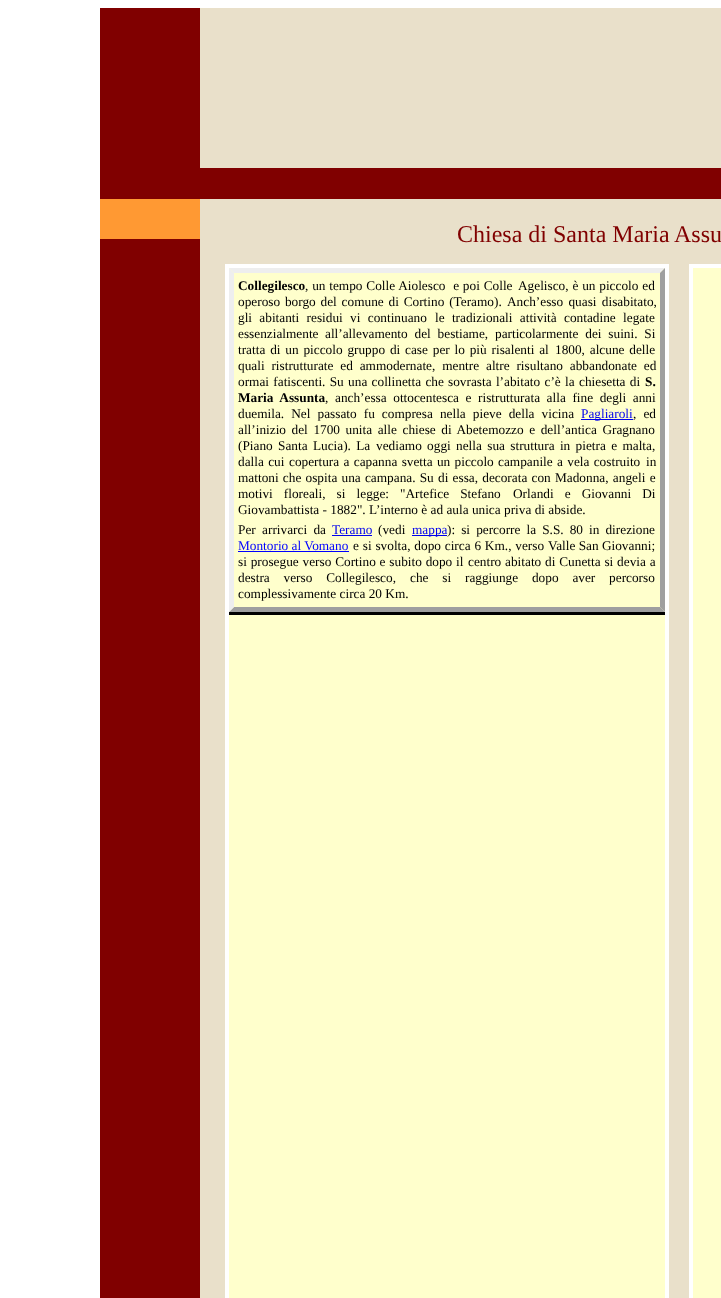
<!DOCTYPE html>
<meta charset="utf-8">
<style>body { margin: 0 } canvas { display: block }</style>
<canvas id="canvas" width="721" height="1298"></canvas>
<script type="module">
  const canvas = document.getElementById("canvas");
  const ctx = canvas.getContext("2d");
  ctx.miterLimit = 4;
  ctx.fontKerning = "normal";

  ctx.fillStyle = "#ffffff";
  ctx.fillRect(0, 0, 721, 1298);
  ctx.fillStyle = "#800000";
  ctx.fillRect(100, 8, 100, 191);
  ctx.fillStyle = "#e9e0ca";
  ctx.fillRect(200, 8, 521, 160);
  ctx.fillStyle = "#800000";
  ctx.fillRect(200, 168, 521, 31);
  ctx.fillStyle = "#ff9933";
  ctx.fillRect(100, 199, 100, 40);
  ctx.fillStyle = "#e9e0ca";
  ctx.fillRect(200, 199, 521, 65);
  ctx.font = "24px Liberation Serif";
  ctx.fillStyle = "#800000";
  ctx.fillText("Chiesa di Santa Maria", 457, 242);
  ctx.fillText("Assu", 674, 242);
  ctx.fillRect(100, 239, 100, 1059);
  ctx.fillStyle = "#e9e0ca";
  ctx.fillRect(200, 264, 25, 1034);
  ctx.fillStyle = "#ffffcc";
  ctx.fillRect(229, 268, 436, 1030);
  ctx.fillStyle = "#eeeeee";
  ctx.beginPath();
  ctx.moveTo(229, 268);
  ctx.lineTo(665, 268);
  ctx.lineTo(660, 273);
  ctx.lineTo(234, 273);
  ctx.closePath();
  ctx.fill();
  ctx.fillStyle = "#9f9f9f";
  ctx.beginPath();
  ctx.moveTo(665, 268);
  ctx.lineTo(665, 612);
  ctx.lineTo(660, 607);
  ctx.lineTo(660, 273);
  ctx.closePath();
  ctx.fill();
  ctx.beginPath();
  ctx.moveTo(665, 612);
  ctx.lineTo(229, 612);
  ctx.lineTo(234, 607);
  ctx.lineTo(660, 607);
  ctx.closePath();
  ctx.fill();
  ctx.fillStyle = "#eeeeee";
  ctx.beginPath();
  ctx.moveTo(229, 612);
  ctx.lineTo(229, 268);
  ctx.lineTo(234, 273);
  ctx.lineTo(234, 607);
  ctx.closePath();
  ctx.fill();
  ctx.font = "bold 13.3px Liberation Serif";
  ctx.fillStyle = "#000000";
  ctx.fillText("Collegilesco", 238, 290);
  ctx.wordSpacing = "0.5px";
  ctx.font = "13.3px Liberation Serif";
  ctx.fillText(", un tempo Colle Aiolesco  e poi Colle", 305, 290);
  ctx.fillText("Agelisco, è un piccolo ed", 518, 290);
  ctx.wordSpacing = "1.5px";
  ctx.fillText("operoso borgo del comune di Cortino (Teramo).", 238, 306);
  ctx.wordSpacing = "2px";
  ctx.fillText("Anch’esso quasi disabitato,", 507, 306);
  ctx.wordSpacing = "4px";
  ctx.fillText("gli abitanti residui vi continuano", 238, 322);
  ctx.fillText("le tradizionali attività contadine legate", 435, 322);
  ctx.wordSpacing = "0px";
  ctx.fillText("essenzialmente", 238, 338);
  ctx.wordSpacing = "3.5px";
  ctx.fillText("all’allevamento del bestiame, particolarmente dei suini. Si", 325, 338);
  ctx.wordSpacing = "1.5px";
  ctx.fillText("tratta di un piccolo gruppo di case per lo più risalenti al", 238, 354);
  ctx.fillText("1800, alcune delle", 555, 354);
  ctx.wordSpacing = "3.5px";
  ctx.fillText("quali ristrutturate ed ammodernate, mentre", 238, 370);
  ctx.fillText("altre risultano abbandonate ed", 486, 370);
  ctx.wordSpacing = "1px";
  ctx.fillText("ormai fatiscenti. Su una collinetta che", 238, 386);
  ctx.fillText("sovrasta l’abitato c’è la chiesetta di", 448, 386);
  ctx.wordSpacing = "0px";
  ctx.font = "bold 13.3px Liberation Serif";
  ctx.fillText("S.", 645, 386);
  ctx.wordSpacing = "3.25px";
  ctx.fillText("Maria Assunta", 238, 402);
  ctx.wordSpacing = "0px";
  ctx.font = "13.3px Liberation Serif";
  ctx.fillText(",", 325, 402);
  ctx.wordSpacing = "3.25px";
  ctx.fillText("anch’essa ottocentesca e ristrutturata alla fine degli anni", 335, 402);
  ctx.wordSpacing = "3.75px";
  ctx.fillText("duemila. Nel passato fu compresa nella pieve della vicina", 238, 418);
  ctx.fillStyle = "#0000ee";
  ctx.fillRect(581, 419, 52, 1);
  ctx.wordSpacing = "0px";
  ctx.fillText("Pagliaroli", 581, 418);
  ctx.wordSpacing = "3.75px";
  ctx.fillStyle = "#000000";
  ctx.fillText(", ed", 633, 418);
  ctx.wordSpacing = "2.25px";
  ctx.fillText("all’inizio del 1700 unita alle chiese di Abetemozzo e dell’antica Gragnano", 238, 434);
  ctx.wordSpacing = "2px";
  ctx.fillText("(Piano Santa Lucia). La", 238, 450);
  ctx.fillText("vediamo oggi nella sua struttura in pietra e malta,", 376, 450);
  ctx.wordSpacing = "1px";
  ctx.fillText("dalla cui", 238, 466);
  ctx.fillText("copertura a capanna svetta un piccolo campanile a vela costruito", 289, 466);
  ctx.wordSpacing = "0px";
  ctx.fillText("in", 646, 466);
  ctx.wordSpacing = "0.9px";
  ctx.fillText("mattoni che ospita una campana. Su di essa, decorata con", 238, 482);
  ctx.wordSpacing = "1px";
  ctx.fillText("Madonna, angeli e", 555, 482);
  ctx.wordSpacing = "7.75px";
  ctx.fillText("motivi floreali, si legge: \"Artefice Stefano", 238, 498);
  ctx.fillText("Orlandi e Giovanni Di", 513, 498);
  ctx.wordSpacing = "0px";
  ctx.fillText("Giovambattista - 1882\". L’interno è ad aula unica priva di abside.", 238, 514);
  ctx.wordSpacing = "3px";
  ctx.fillText("Per arrivarci da", 238, 534);
  ctx.wordSpacing = "0px";
  ctx.fillStyle = "#0000ee";
  ctx.fillText("Teramo", 332, 534);
  ctx.fillRect(332, 535, 40, 1);
  ctx.fillStyle = "#000000";
  ctx.fillText("(vedi", 378, 534);
  ctx.fillStyle = "#0000ee";
  ctx.fillRect(412, 535, 35, 1);
  ctx.fillText("mappa", 412, 534);
  ctx.wordSpacing = "2.75px";
  ctx.fillStyle = "#000000";
  ctx.fillText("): si percorre la S.S. 80 in direzione", 447, 534);
  ctx.wordSpacing = "0px";
  ctx.fillStyle = "#0000ff";
  ctx.fillText("Montorio al Vomano", 238, 550);
  ctx.fillRect(238, 551, 111, 1);
  ctx.wordSpacing = "0.5px";
  ctx.fillStyle = "#000000";
  ctx.fillText("e si svolta, dopo circa 6 Km., verso", 353, 550);
  ctx.wordSpacing = "0px";
  ctx.fillText("Valle San Giovanni;", 548, 550);
  ctx.wordSpacing = "0.5px";
  ctx.fillText("si prosegue verso Cortino e subito dopo il", 238, 566);
  ctx.fillText("centro abitato di Cunetta si devia a", 468, 566);
  ctx.wordSpacing = "10.5px";
  ctx.fillText("destra verso Collegilesco,", 238, 582);
  ctx.fillText("che si raggiunge dopo aver percorso", 410, 582);
  ctx.wordSpacing = "0px";
  ctx.fillText("complessivamente circa 20 Km.", 238, 598);
  ctx.fillRect(229, 612, 436, 3);
  ctx.fillStyle = "#e9e0ca";
  ctx.fillRect(669, 264, 20, 1034);
  ctx.fillStyle = "#ffffcc";
  ctx.fillRect(693, 268, 28, 1030);
</script>
